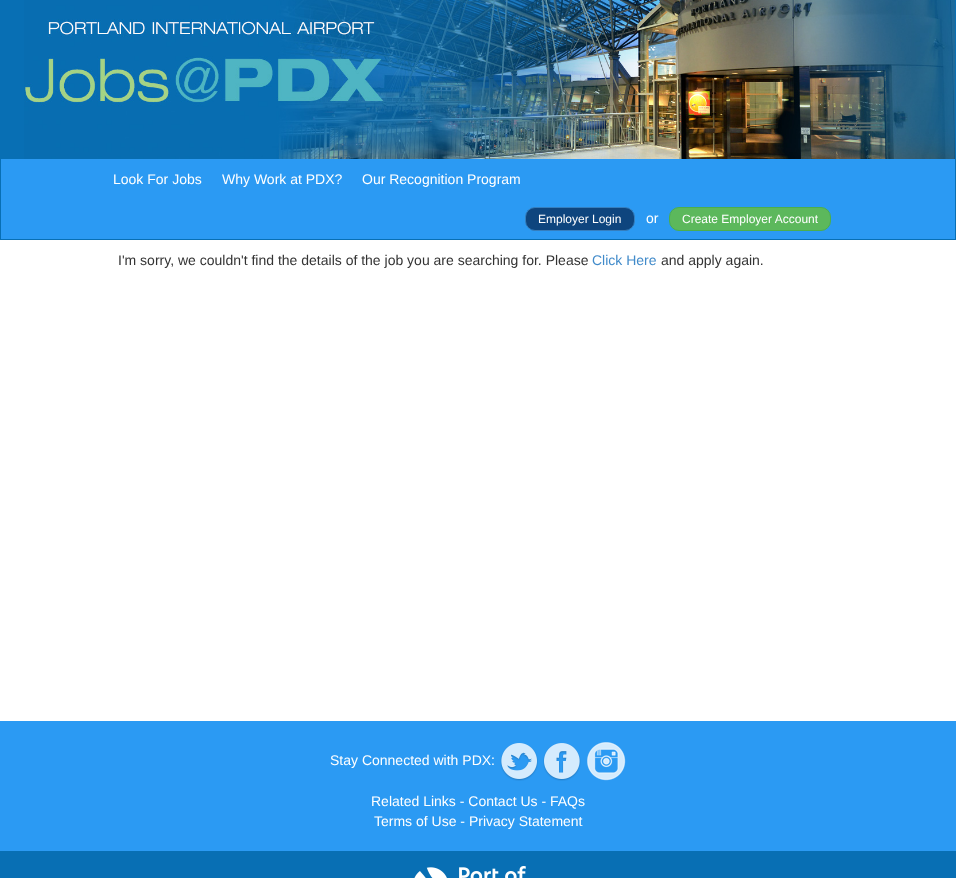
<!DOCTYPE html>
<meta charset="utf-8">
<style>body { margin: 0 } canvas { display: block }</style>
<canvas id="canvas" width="956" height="878"></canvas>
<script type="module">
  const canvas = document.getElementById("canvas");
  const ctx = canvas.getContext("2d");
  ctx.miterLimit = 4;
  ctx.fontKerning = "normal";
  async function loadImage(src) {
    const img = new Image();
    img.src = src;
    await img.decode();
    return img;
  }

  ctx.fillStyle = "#ffffff";
  ctx.fillRect(0, 0, 956, 878);
  ctx.fillStyle = "#086fb4";
  ctx.fillRect(0, 0, 956, 240);
  ctx.drawImage(await loadImage("img1.png"), 24, 0, 931, 159);
  ctx.fillStyle = "#2b9af3";
  ctx.fillRect(1, 159, 954, 80);
  ctx.font = "14px Liberation Sans";
  ctx.fillStyle = "#ffffff";
  ctx.fillText("Look For Jobs", 113, 184);
  ctx.fillText("Why Work at PDX?", 222, 184);
  ctx.fillText("Our Recognition Program", 362, 184);
  ctx.fillStyle = "#0e457e";
  ctx.beginPath();
  ctx.roundRect(525.5, 207.5, 109, 23, 9.5);
  ctx.fill();
  ctx.strokeStyle = "#357ebd";
  ctx.stroke();
  ctx.font = "12px Liberation Sans";
  ctx.fillStyle = "#ffffff";
  ctx.fillText("Employer Login", 538, 223);
  ctx.font = "14px Liberation Sans";
  ctx.fillText("or", 646, 223);
  ctx.fillStyle = "#5cb85c";
  ctx.beginPath();
  ctx.roundRect(669.5, 207.5, 161, 23, 9.5);
  ctx.fill();
  ctx.strokeStyle = "#4cae4c";
  ctx.stroke();
  ctx.font = "12px Liberation Sans";
  ctx.fillStyle = "#ffffff";
  ctx.fillText("Create Employer Account", 682, 223);
  ctx.font = "14px Liberation Sans";
  ctx.fillStyle = "#333333";
  ctx.fillText("I'm sorry, we couldn't find the details of the job you are searching for. Please", 118, 265);
  ctx.fillStyle = "#428bca";
  ctx.fillText("Click Here", 592, 265);
  ctx.fillStyle = "#333333";
  ctx.fillText("and apply again.", 661, 265);
  ctx.fillStyle = "#2b9af3";
  ctx.fillRect(0, 721, 956, 130);
  ctx.fillStyle = "#ffffff";
  ctx.fillText("Stay Connected with PDX:", 330, 765);
  ctx.drawImage(await loadImage("img2.png"), 500, 743, 38, 38);
  ctx.drawImage(await loadImage("img3.png"), 543, 743, 38, 38);
  ctx.drawImage(await loadImage("img4.png"), 587, 742, 39, 39);
  ctx.fillText("Related Links - Contact Us - FAQs", 371, 806);
  ctx.fillText("Terms of Use - Privacy Statement", 374, 826);
  ctx.fillStyle = "#086fb4";
  ctx.fillRect(0, 851, 956, 27);
  ctx.drawImage(await loadImage("img5.png"), 414, 866, 112, 12);
</script>
